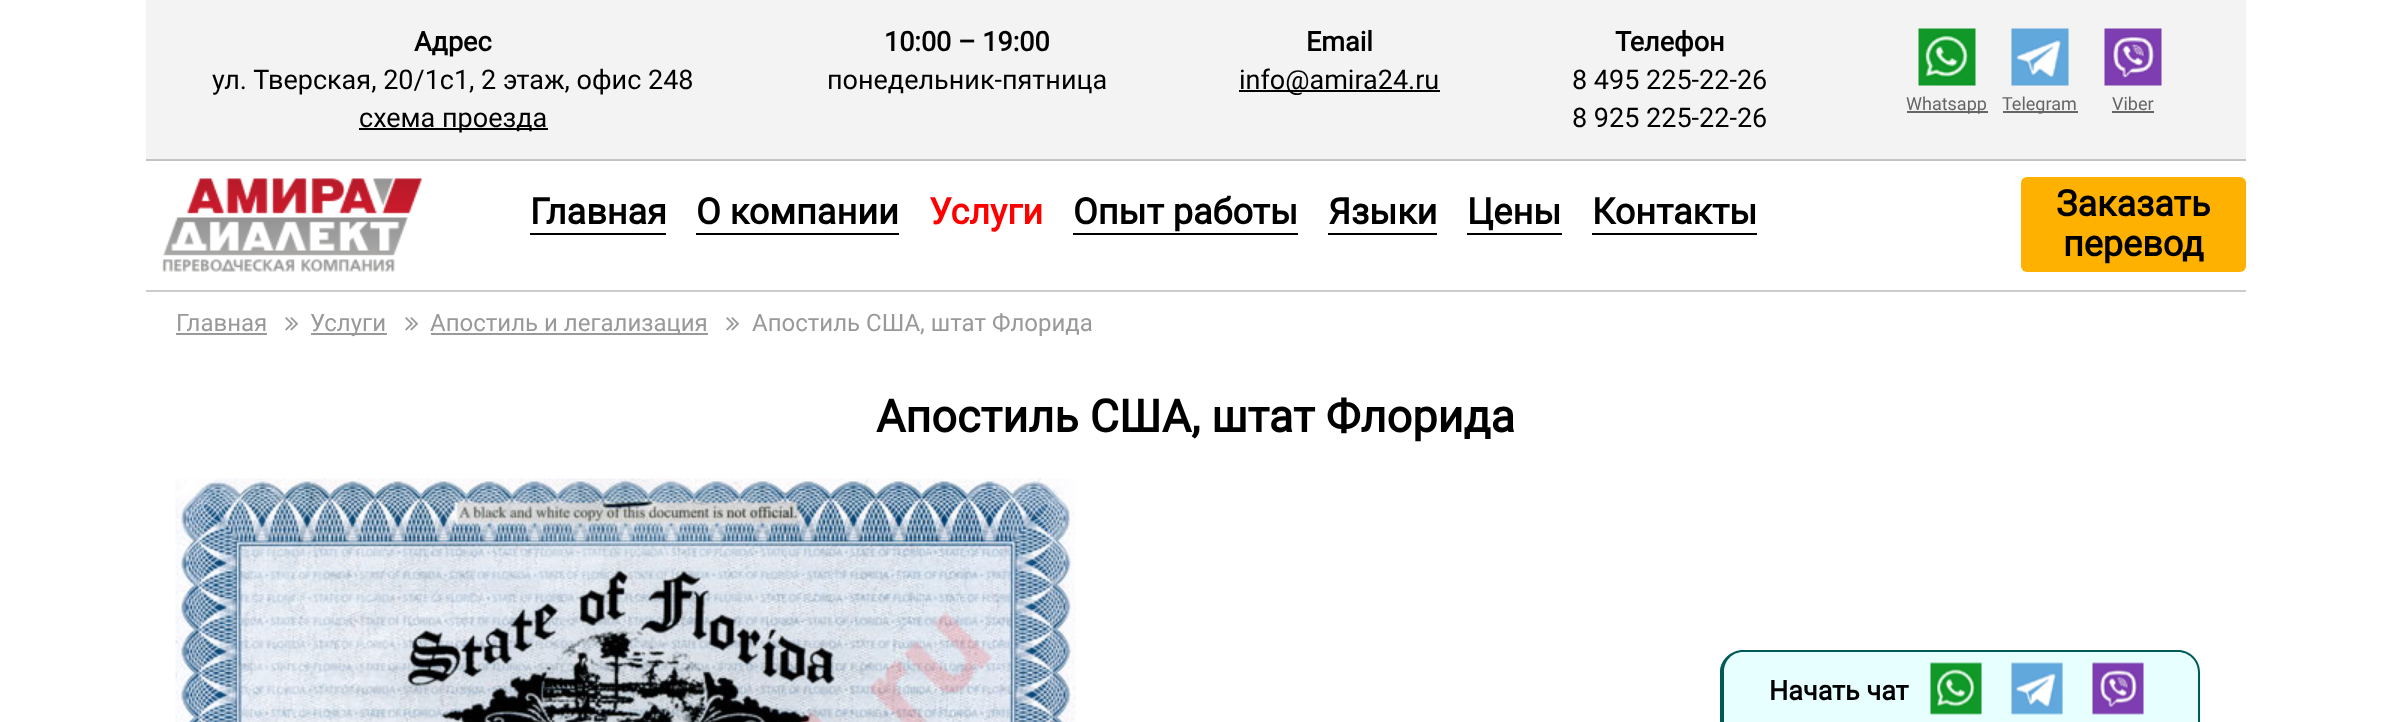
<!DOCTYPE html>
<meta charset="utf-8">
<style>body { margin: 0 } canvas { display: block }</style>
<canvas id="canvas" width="2391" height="722"></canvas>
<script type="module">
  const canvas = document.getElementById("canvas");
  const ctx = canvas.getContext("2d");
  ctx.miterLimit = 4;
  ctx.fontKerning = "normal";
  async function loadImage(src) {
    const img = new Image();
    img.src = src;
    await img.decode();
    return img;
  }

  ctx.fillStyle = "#ffffff";
  ctx.fillRect(0, 0, 2391, 722);
  ctx.fillStyle = "#f3f3f3";
  ctx.fillRect(146, 0, 2100, 159);
  ctx.fillStyle = "#c3c3c3";
  ctx.fillRect(146, 159, 2100, 2);
  ctx.font = "bold 27px Roboto";
  ctx.fillStyle = "#000000";
  ctx.fillText("Адрес", 414, 51);
  ctx.font = "27px Roboto";
  ctx.fillText("ул. Тверская, 20/1с1, 2 этаж, офис 248", 212, 89);
  ctx.fillRect(359, 128, 189, 2);
  ctx.fillText("схема проезда", 359, 127);
  ctx.font = "bold 27px Roboto";
  ctx.fillText("10:00 – 19:00", 884, 51);
  ctx.font = "27px Roboto";
  ctx.fillText("понедельник-пятница", 827, 89);
  ctx.font = "bold 27px Roboto";
  ctx.fillText("Email", 1306, 51);
  ctx.fillRect(1239, 90, 201, 2);
  ctx.font = "27px Roboto";
  ctx.fillText("info@amira24.ru", 1239, 89);
  ctx.font = "bold 27px Roboto";
  ctx.fillText("Телефон", 1615, 51);
  ctx.font = "27px Roboto";
  ctx.fillText("8 495 225-22-26", 1572, 89);
  ctx.fillText("8 925 225-22-26", 1572, 127);
  ctx.drawImage(await loadImage("img1.png"), 1918, 28, 58, 58);
  ctx.fillStyle = "#666666";
  ctx.fillRect(1907, 111, 81, 2);
  ctx.font = "18px Roboto";
  ctx.fillText("Whatsapp", 1906, 110);
  ctx.drawImage(await loadImage("img2.png"), 2011, 28, 58, 58);
  ctx.fillRect(2003, 111, 75, 2);
  ctx.fillText("Telegram", 2002, 110);
  ctx.drawImage(await loadImage("img3.png"), 2104, 28, 58, 58);
  ctx.fillText("Viber", 2112, 110);
  ctx.fillRect(2112, 111, 42, 2);
  ctx.fillStyle = "#cccccc";
  ctx.fillRect(146, 290, 2100, 2);
  ctx.drawImage(await loadImage("img4.png"), 162, 178, 261, 94);
  ctx.font = "bold 36px Roboto";
  ctx.fillStyle = "#000000";
  ctx.fillText("Главная", 530, 224);
  ctx.fillRect(530, 233, 136, 2);
  ctx.fillText("О компании", 696, 224);
  ctx.fillRect(696, 233, 203, 2);
  ctx.fillStyle = "#ff0000";
  ctx.fillText("Услуги", 929, 224);
  ctx.fillStyle = "#000000";
  ctx.fillText("Опыт работы", 1073, 224);
  ctx.fillRect(1073, 233, 225, 2);
  ctx.fillText("Языки", 1328, 224);
  ctx.fillRect(1328, 233, 109, 2);
  ctx.fillText("Цены", 1467, 224);
  ctx.fillRect(1467, 233, 95, 2);
  ctx.fillText("Контакты", 1592, 224);
  ctx.fillRect(1592, 233, 165, 2);
  ctx.fillStyle = "#ffb102";
  ctx.beginPath();
  ctx.roundRect(2021, 177, 225, 95, 6);
  ctx.fill();
  ctx.fillStyle = "#000000";
  ctx.fillText("Заказать", 2056, 216);
  ctx.fillText("перевод", 2063, 256);
  ctx.font = "24px Roboto";
  ctx.fillStyle = "#999999";
  ctx.fillText("Главная", 176, 331);
  ctx.fillRect(176, 333, 91, 2);
  ctx.drawImage(await loadImage("img5.png"), 285, 317, 13, 14);
  ctx.fillRect(311, 333, 76, 2);
  ctx.fillText("Услуги", 310, 331);
  ctx.drawImage(await loadImage("img5.png"), 405, 317, 13, 14);
  ctx.fillRect(431, 333, 277, 2);
  ctx.fillText("Апостиль и легализация", 430, 331);
  ctx.drawImage(await loadImage("img5.png"), 726, 317, 13, 14);
  ctx.fillText("Апостиль США, штат Флорида", 752, 331);
  ctx.font = "bold 45px Roboto";
  ctx.fillStyle = "#000000";
  ctx.fillText("Апостиль США, штат Флорида", 876, 432);
  ctx.drawImage(await loadImage("img6.png"), 175, 478, 901, 244);
  ctx.fillStyle = "#e7ffff";
  ctx.beginPath();
  ctx.moveTo(1744, 650);
  ctx.lineTo(2178, 650);
  ctx.bezierCurveTo(2190.5, 650, 2201, 660.5, 2201, 673);
  ctx.lineTo(2201, 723);
  ctx.lineTo(1721, 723);
  ctx.lineTo(1721, 673);
  ctx.bezierCurveTo(1721, 660.5, 1731.5, 650, 1744, 650);
  ctx.closePath();
  ctx.fill();
  ctx.fillStyle = "#005a5a";
  ctx.beginPath();
  ctx.moveTo(1743, 650);
  ctx.lineTo(2178, 650);
  ctx.bezierCurveTo(2190, 650, 2200, 660, 2200, 672);
  ctx.lineTo(2200, 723);
  ctx.lineTo(1720, 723);
  ctx.lineTo(1720, 672);
  ctx.bezierCurveTo(1720, 660, 1731, 650, 1743, 650);
  ctx.closePath();
  ctx.moveTo(1743, 652);
  ctx.lineTo(2178, 652);
  ctx.bezierCurveTo(2189, 652, 2198, 661, 2198, 672);
  ctx.lineTo(2198, 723);
  ctx.lineTo(1724, 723);
  ctx.lineTo(1724, 672);
  ctx.bezierCurveTo(1724, 661, 1732, 652, 1743, 652);
  ctx.closePath();
  ctx.fill("evenodd");
  ctx.font = "bold 27px Roboto";
  ctx.fillStyle = "#000000";
  ctx.fillText("Начать чат", 1769, 700);
  ctx.drawImage(await loadImage("img7.png"), 1930, 662, 52, 53);
  ctx.drawImage(await loadImage("img8.png"), 2011, 662, 52, 53);
  ctx.drawImage(await loadImage("img9.png"), 2092, 662, 52, 53);
</script>
